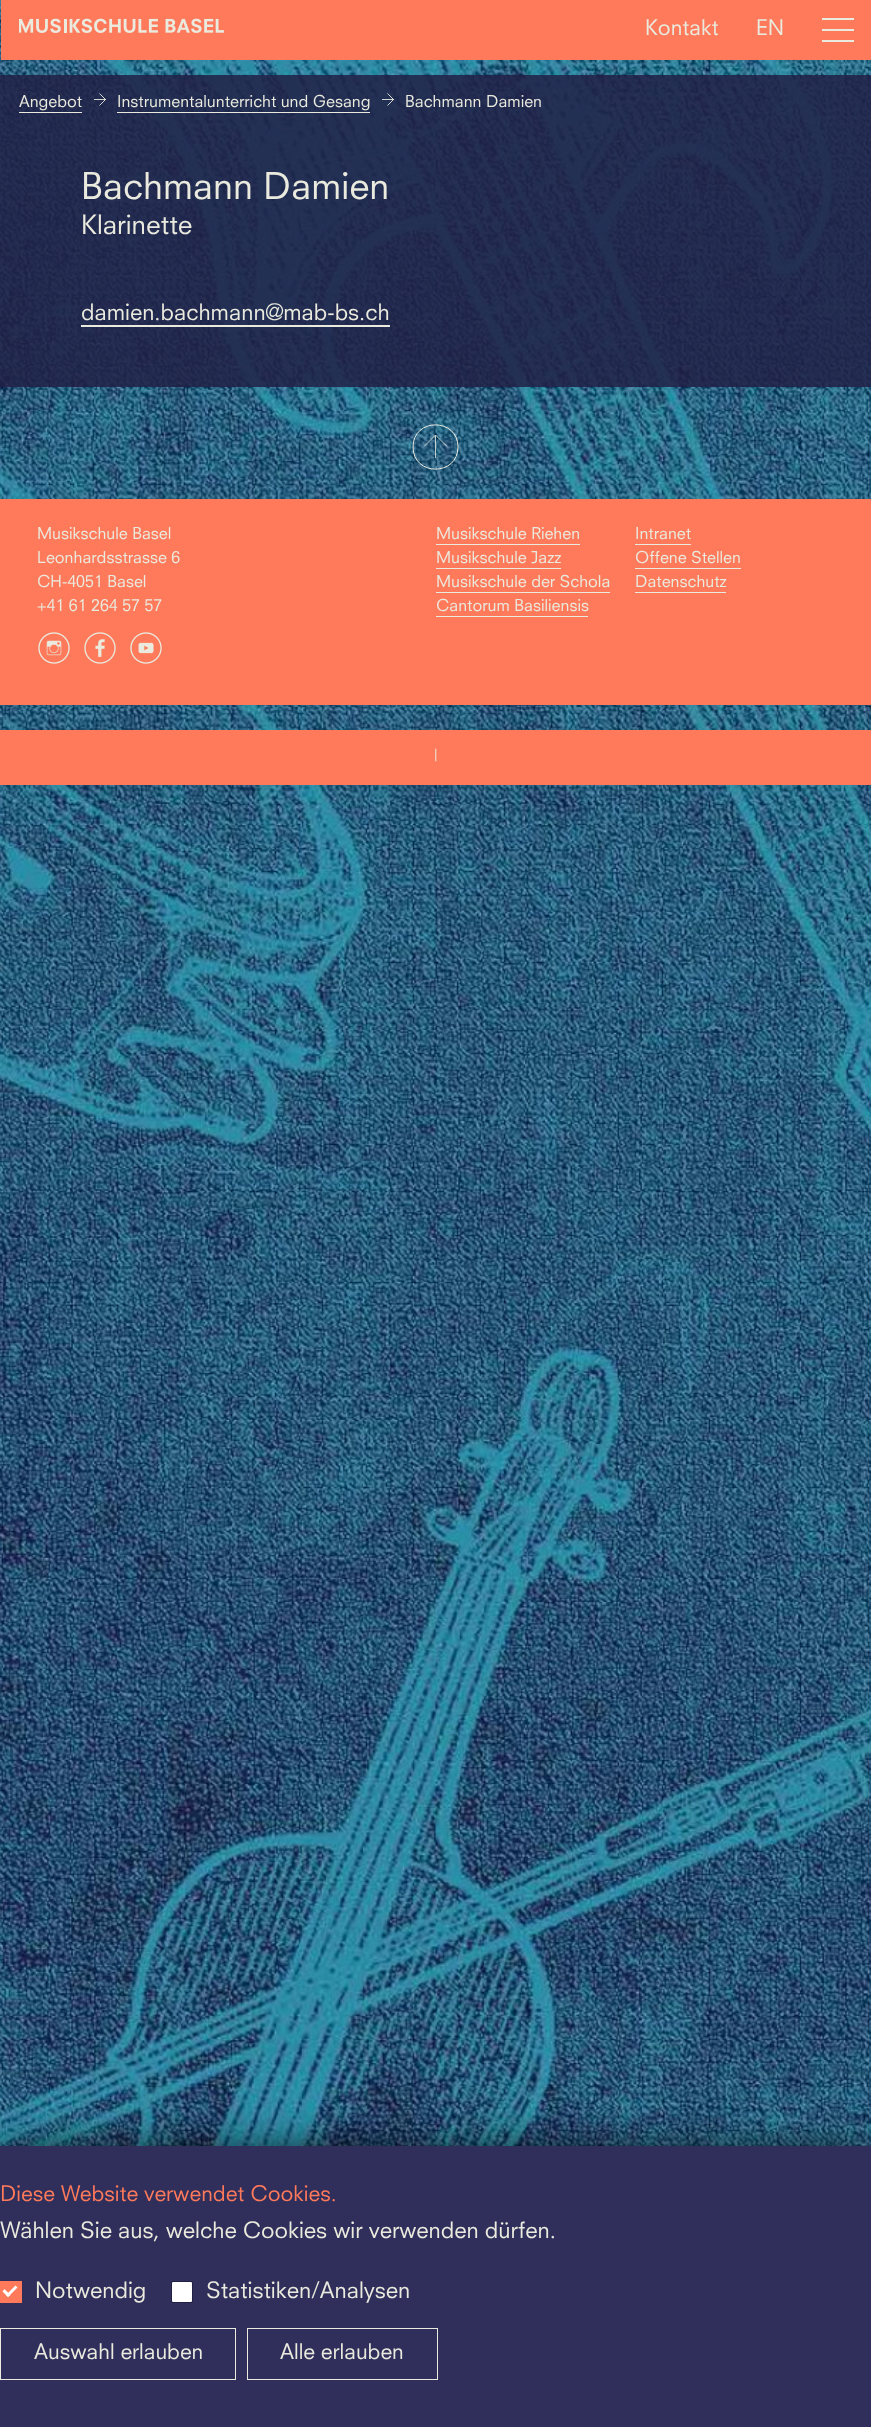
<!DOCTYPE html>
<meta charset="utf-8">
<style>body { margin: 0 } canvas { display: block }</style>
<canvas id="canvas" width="871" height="2427"></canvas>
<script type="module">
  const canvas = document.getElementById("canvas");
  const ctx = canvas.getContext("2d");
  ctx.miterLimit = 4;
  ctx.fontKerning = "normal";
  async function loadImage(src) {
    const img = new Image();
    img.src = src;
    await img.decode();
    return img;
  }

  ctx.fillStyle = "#ffffff";
  ctx.fillRect(0, 0, 871, 2427);
  ctx.drawImage(await loadImage("img1.png"), 0, 0, 871, 2146);
  ctx.fillStyle = "#ff7a5b";
  ctx.fillRect(1, 0, 870, 60);
  ctx.drawImage(await loadImage("img2.png"), 19, 18, 205, 15);
  ctx.font = "21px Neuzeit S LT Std";
  ctx.fillStyle = "#eaeade";
  ctx.fillText("Kontakt", 645, 35);
  ctx.fillText("EN", 756, 35);
  ctx.fillRect(822, 29, 32, 2);
  ctx.fillRect(822, 18, 32, 2);
  ctx.fillRect(822, 40, 32, 2);
  ctx.fillStyle = "rgba(33, 32, 69, 0.85)";
  ctx.fillRect(0, 75, 871, 58);
  ctx.font = "16px Neuzeit S LT Std";
  ctx.fillStyle = "#eaeade";
  ctx.fillText("Angebot", 19, 107);
  ctx.fillRect(19, 112, 63, 1);
  ctx.beginPath();
  ctx.moveTo(99.5, 93.5);
  ctx.lineTo(105.5, 99.5);
  ctx.lineTo(99.5, 105.5);
  ctx.strokeStyle = "#eaeade";
  ctx.lineWidth = 0.9;
  ctx.stroke();
  ctx.fillStyle = "rgba(234, 234, 222, 0.9)";
  ctx.fillRect(94, 99, 12, 1);
  ctx.fillStyle = "#eaeade";
  ctx.fillText("Instrumentalunterricht und Gesang", 117, 107);
  ctx.fillRect(117, 112, 253, 1);
  ctx.beginPath();
  ctx.moveTo(387.5, 93.5);
  ctx.lineTo(393.5, 99.5);
  ctx.lineTo(387.5, 105.5);
  ctx.stroke();
  ctx.fillStyle = "rgba(234, 234, 222, 0.9)";
  ctx.fillRect(382, 99, 12, 1);
  ctx.fillStyle = "#eaeade";
  ctx.fillText("Bachmann Damien", 405, 107);
  ctx.fillStyle = "rgba(33, 32, 69, 0.85)";
  ctx.fillRect(0, 133, 871, 254);
  ctx.font = "36px Neuzeit S LT Std";
  ctx.fillStyle = "#eaeade";
  ctx.fillText("Bachmann Damien", 81, 199);
  ctx.font = "26px Neuzeit S LT Std";
  ctx.fillText("Klarinette", 81, 234);
  ctx.font = "22px Neuzeit S LT Std";
  ctx.fillText("damien.bachmann@mab-bs.ch", 81, 320);
  ctx.fillRect(81, 325, 309, 2);
  ctx.beginPath();
  ctx.moveTo(413, 447);
  ctx.bezierCurveTo(413, 417.5, 458, 417.5, 458, 447);
  ctx.bezierCurveTo(458, 476.5, 413, 476.5, 413, 447);
  ctx.closePath();
  ctx.lineWidth = 1;
  ctx.stroke();
  ctx.beginPath();
  ctx.moveTo(424, 446.5);
  ctx.lineTo(435.5, 435);
  ctx.lineTo(447, 446.5);
  ctx.lineWidth = 0.8;
  ctx.stroke();
  ctx.fillStyle = "rgba(234, 234, 222, 0.8)";
  ctx.fillRect(435, 435, 1, 23);
  ctx.fillStyle = "#ff7a5b";
  ctx.fillRect(0, 499, 871, 206);
  ctx.font = "16px Neuzeit S LT Std";
  ctx.fillStyle = "#eaeade";
  ctx.fillText("Musikschule Basel", 37, 539);
  ctx.fillText("Leonhardsstrasse 6", 37, 563);
  ctx.fillText("CH-4051 Basel", 37, 587);
  ctx.fillText("+41 61 264 57 57", 37, 611);
  ctx.drawImage(await loadImage("img3.png"), 38, 632, 32, 32);
  ctx.drawImage(await loadImage("img4.png"), 84, 632, 32, 32);
  ctx.drawImage(await loadImage("img5.png"), 130, 632, 32, 32);
  ctx.fillText("Musikschule Riehen", 436, 539);
  ctx.fillRect(436, 544, 144, 1);
  ctx.fillText("Musikschule Jazz", 436, 563);
  ctx.fillRect(436, 568, 125, 1);
  ctx.fillText("Musikschule der Schola", 436, 587);
  ctx.fillRect(436, 592, 174, 1);
  ctx.fillText("Cantorum Basiliensis", 436, 611);
  ctx.fillRect(436, 616, 152, 1);
  ctx.fillText("Intranet", 635, 539);
  ctx.fillRect(635, 544, 56, 1);
  ctx.fillText("Offene Stellen", 635, 563);
  ctx.fillRect(635, 568, 106, 1);
  ctx.fillText("Datenschutz", 635, 587);
  ctx.fillRect(635, 592, 91, 1);
  ctx.fillStyle = "#ff7a5b";
  ctx.fillRect(0, 730, 871, 55);
  ctx.fillStyle = "#eaeade";
  ctx.fillText("|", 434, 761);
  ctx.fillStyle = "rgba(0, 0, 0, 0.75)";
  ctx.filter = "blur(20px)";
  ctx.beginPath();
  ctx.rect(4, 2150, 863, 273);
  ctx.fill();
  ctx.filter = "none";
  ctx.fillStyle = "#302f5b";
  ctx.fillRect(0, 2146, 871, 281);
  ctx.font = "21px Neuzeit S LT Std";
  ctx.fillStyle = "#ff7a5b";
  ctx.fillText("Diese Website verwendet Cookies.", 0, 2201);
  ctx.font = "22px Neuzeit S LT Std";
  ctx.fillStyle = "#eaeade";
  ctx.fillText("Wählen Sie aus, welche Cookies wir verwenden dürfen.", 0, 2238);
  ctx.fillStyle = "#ff7a5b";
  ctx.fillRect(0, 2281, 22, 22);
  ctx.fillStyle = "#ffffff";
  ctx.beginPath();
  ctx.moveTo(15.5, 2285.5);
  ctx.lineTo(17.5, 2287.5);
  ctx.lineTo(8, 2297);
  ctx.lineTo(6, 2295);
  ctx.closePath();
  ctx.fill();
  ctx.beginPath();
  ctx.moveTo(4.5, 2289);
  ctx.lineTo(10.5, 2295);
  ctx.lineTo(8, 2297);
  ctx.lineTo(2.5, 2291.5);
  ctx.closePath();
  ctx.fill();
  ctx.fillStyle = "#eaeade";
  ctx.fillText("Notwendig", 35, 2298);
  ctx.fillStyle = "#ffffff";
  ctx.beginPath();
  ctx.rect(171.5, 2281.5, 21, 21);
  ctx.fill();
  ctx.strokeStyle = "#212045";
  ctx.lineWidth = 1;
  ctx.stroke();
  ctx.beginPath();
  ctx.roundRect(171.5, 2281.5, 21, 21, 1.5);
  ctx.stroke();
  ctx.fillStyle = "#eaeade";
  ctx.fillText("Statistiken/Analysen", 206, 2298);
  ctx.strokeStyle = "#eaeade";
  ctx.strokeRect(0.5, 2328.5, 235, 51);
  ctx.font = "21px Neuzeit S LT Std";
  ctx.fillText("Auswahl erlauben", 34, 2359);
  ctx.strokeRect(247.5, 2328.5, 190, 51);
  ctx.fillText("Alle erlauben", 280, 2359);
</script>
